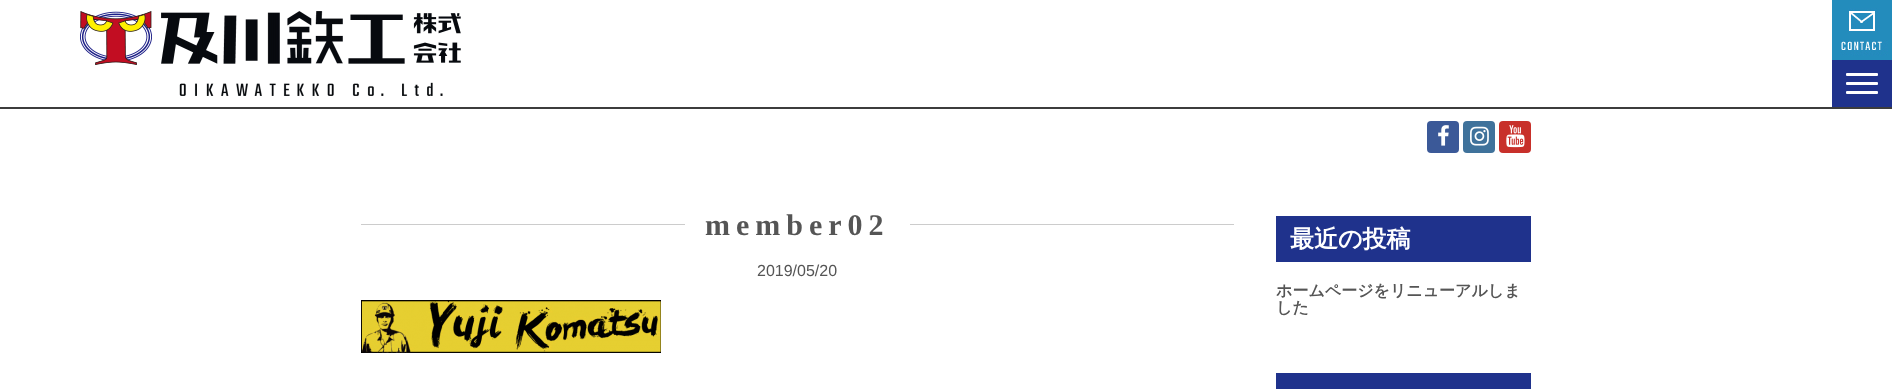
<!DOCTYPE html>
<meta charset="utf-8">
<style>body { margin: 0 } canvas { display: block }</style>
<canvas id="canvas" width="1892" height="389"></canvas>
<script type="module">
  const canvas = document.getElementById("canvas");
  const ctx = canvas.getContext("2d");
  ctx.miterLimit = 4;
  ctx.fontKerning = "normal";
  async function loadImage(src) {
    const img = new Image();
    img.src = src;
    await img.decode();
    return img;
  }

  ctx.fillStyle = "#ffffff";
  ctx.fillRect(0, 0, 1892, 389);
  ctx.fillStyle = "#3c3c3c";
  ctx.fillRect(0, 107, 1892, 2);
  ctx.drawImage(await loadImage("img1.png"), 80, 11, 381, 85);
  ctx.drawImage(await loadImage("img2.png"), 1832, 0, 60, 60);
  ctx.fillStyle = "#1f328c";
  ctx.fillRect(1832, 60, 60, 47);
  ctx.fillStyle = "#ffffff";
  ctx.beginPath();
  ctx.roundRect(1846, 73, 32, 3, 1);
  ctx.fill();
  ctx.beginPath();
  ctx.roundRect(1846, 82, 32, 3, 1);
  ctx.fill();
  ctx.beginPath();
  ctx.roundRect(1846, 91, 32, 3, 1);
  ctx.fill();
  ctx.fillStyle = "#3b5998";
  ctx.beginPath();
  ctx.roundRect(1427, 121, 32, 32, 4);
  ctx.fill();
  ctx.drawImage(await loadImage("img3.png"), 1438, 125, 11, 21);
  ctx.fillStyle = "#3f729b";
  ctx.beginPath();
  ctx.roundRect(1463, 121, 32, 32, 4);
  ctx.fill();
  ctx.drawImage(await loadImage("img4.png"), 1470, 126, 19, 20);
  ctx.fillStyle = "#c8302a";
  ctx.beginPath();
  ctx.roundRect(1499, 121, 32, 32, 4);
  ctx.fill();
  ctx.drawImage(await loadImage("img5.png"), 1506, 125, 19, 23);
  ctx.fillStyle = "#cccccc";
  ctx.fillRect(361, 224, 324, 1);
  ctx.letterSpacing = "6px";
  ctx.font = "bold 30px Liberation Serif";
  ctx.fillStyle = "#555555";
  ctx.fillText("member02", 705, 235);
  ctx.fillStyle = "#cccccc";
  ctx.fillRect(910, 224, 324, 1);
  ctx.letterSpacing = "0px";
  ctx.font = "16px Liberation Sans";
  ctx.fillStyle = "#555555";
  ctx.fillText("2019/05/20", 757, 276);
  ctx.drawImage(await loadImage("img6.png"), 361, 300, 300, 53);
  ctx.fillStyle = "#1f328c";
  ctx.fillRect(1276, 216, 255, 46);
  ctx.font = "bold 24px WenQuanYi Zen Hei";
  ctx.fillStyle = "#ffffff";
  ctx.fillText("最近の投稿", 1290, 247);
  ctx.font = "bold 16px WenQuanYi Zen Hei";
  ctx.fillStyle = "#555555";
  ctx.fillText("ホームページをリニューアルしま", 1276, 296);
  ctx.fillText("した", 1276, 313);
  ctx.fillStyle = "#1f328c";
  ctx.fillRect(1276, 373, 255, 16);
</script>
